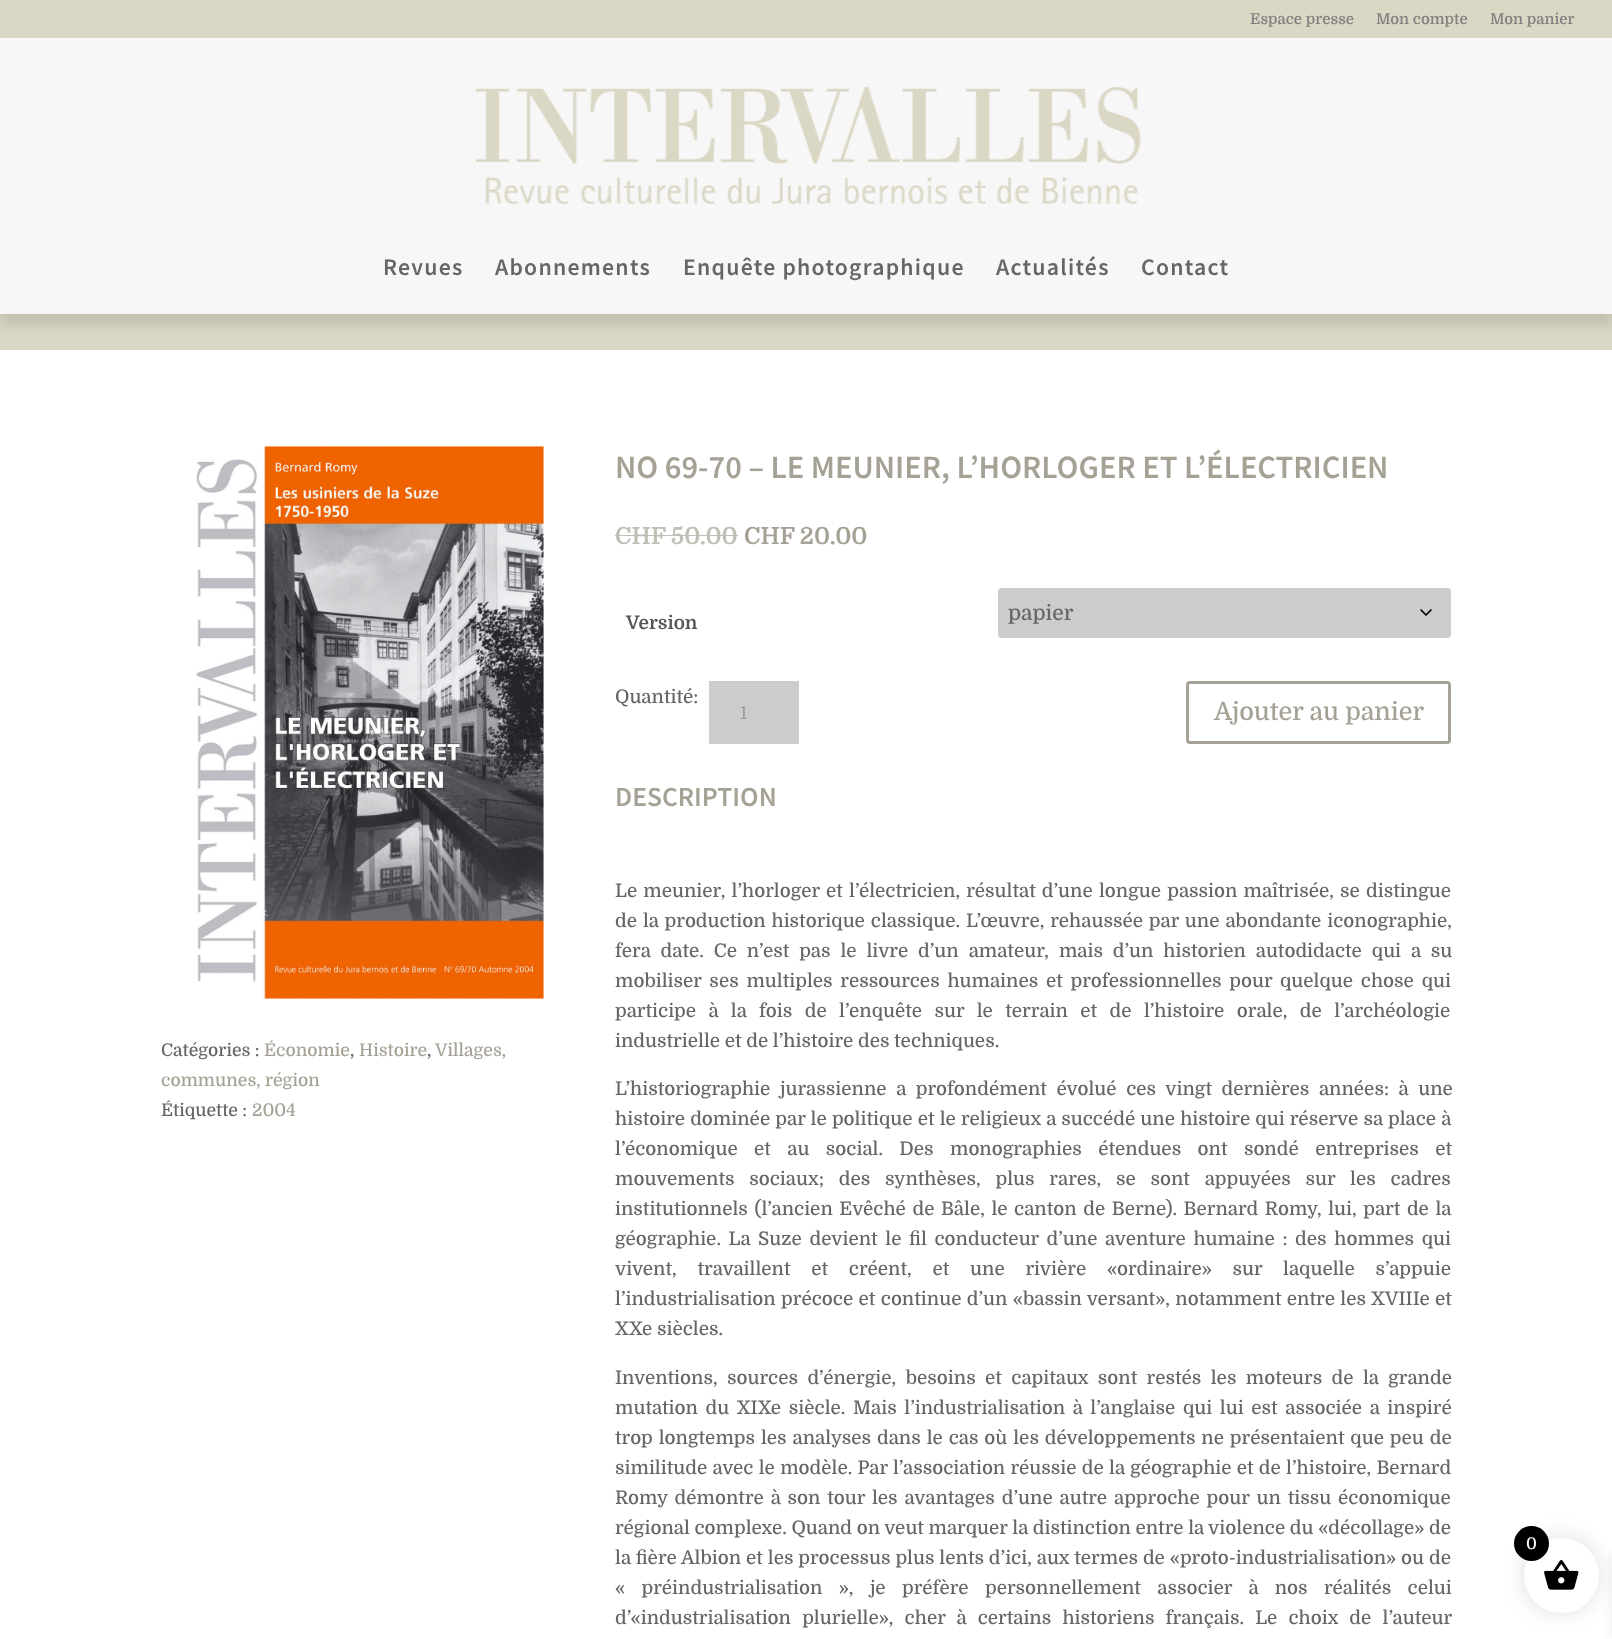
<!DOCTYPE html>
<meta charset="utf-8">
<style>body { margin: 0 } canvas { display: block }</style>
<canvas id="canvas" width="1612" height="1639"></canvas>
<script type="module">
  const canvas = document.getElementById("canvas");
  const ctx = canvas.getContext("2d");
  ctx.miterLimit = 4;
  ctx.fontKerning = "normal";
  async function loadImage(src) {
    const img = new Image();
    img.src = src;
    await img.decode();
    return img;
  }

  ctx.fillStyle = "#dbd7c5";
  ctx.fillRect(0, 0, 1612, 1639);
  ctx.font = "600 15px Domine";
  ctx.fillStyle = "#828282";
  ctx.fillText("Espace presse", 1250, 24);
  ctx.fillText("Mon compte", 1376, 24);
  ctx.fillText("Mon panier", 1490, 24);
  ctx.fillStyle = "rgba(0, 0, 0, 0.1)";
  ctx.filter = "blur(6px)";
  ctx.beginPath();
  ctx.rect(0, 50, 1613, 276);
  ctx.fill();
  ctx.filter = "none";
  ctx.fillStyle = "#f7f7f7";
  ctx.fillRect(0, 38, 1612, 276);
  ctx.drawImage(await loadImage("img1.png"), 475, 86, 666, 118);
  ctx.letterSpacing = "1.25px";
  ctx.font = "600 23.75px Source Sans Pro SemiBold";
  ctx.fillStyle = "#666666";
  ctx.fillText("Revues", 383, 275);
  ctx.fillText("Abonnements", 495, 275);
  ctx.fillText("Enquête photographique", 683, 275);
  ctx.fillText("Actualités", 996, 275);
  ctx.fillText("Contact", 1141, 275);
  ctx.fillStyle = "#ffffff";
  ctx.fillRect(0, 350, 1612, 1289);
  ctx.drawImage(await loadImage("img2.png"), 196, 446, 348, 553);
  ctx.letterSpacing = "0px";
  ctx.font = "500 17.5px Domine";
  ctx.fillStyle = "#666666";
  ctx.fillText("Catégories :", 161, 1056);
  ctx.fillStyle = "#a5a295";
  ctx.fillText("Économie", 264, 1056);
  ctx.fillStyle = "#666666";
  ctx.fillText(",", 350, 1056);
  ctx.fillStyle = "#a5a295";
  ctx.fillText("Histoire", 359, 1056);
  ctx.fillStyle = "#666666";
  ctx.fillText(",", 427, 1056);
  ctx.fillStyle = "#a5a295";
  ctx.fillText("Villages,", 435, 1056);
  ctx.fillText("communes, région", 161, 1086);
  ctx.fillStyle = "#666666";
  ctx.fillText("Étiquette :", 161, 1116);
  ctx.fillStyle = "#a5a295";
  ctx.fillText("2004", 252, 1116);
  ctx.font = "600 32.5px Source Sans Pro SemiBold";
  ctx.fillText("NO 69-70 – LE MEUNIER, L’HORLOGER ET L’ÉLECTRICIEN", 615, 478);
  ctx.font = "bold 23.5px Domine";
  ctx.fillStyle = "#c0beb5";
  ctx.fillText("CHF 50.00", 615, 544);
  ctx.fillRect(615, 535, 123, 1);
  ctx.fillStyle = "#a5a295";
  ctx.fillText("CHF 20.00", 744, 544);
  ctx.font = "bold 18.75px Domine";
  ctx.fillStyle = "#555555";
  ctx.fillText("Version", 626, 629);
  ctx.fillStyle = "#cccccc";
  ctx.beginPath();
  ctx.roundRect(998, 588, 453, 50, 4);
  ctx.fill();
  ctx.beginPath();
  ctx.moveTo(1421, 610);
  ctx.lineTo(1426, 615);
  ctx.lineTo(1431, 610);
  ctx.strokeStyle = "#000000";
  ctx.lineWidth = 1.7;
  ctx.lineCap = "round";
  ctx.lineJoin = "round";
  ctx.stroke();
  ctx.font = "500 21px Domine";
  ctx.fillStyle = "#666666";
  ctx.fillText("papier", 1008, 620);
  ctx.font = "500 18.75px Domine";
  ctx.fillText("Quantité:", 615, 703);
  ctx.fillStyle = "#cccccc";
  ctx.fillRect(709, 681, 90, 63);
  ctx.font = "17.5px Domine";
  ctx.fillStyle = "#999999";
  ctx.fillText("1", 740, 719);
  ctx.beginPath();
  ctx.roundRect(1187.5, 682.5, 262, 60, 2.5);
  ctx.strokeStyle = "#a5a295";
  ctx.lineWidth = 3;
  ctx.lineJoin = "miter";
  ctx.stroke();
  ctx.font = "500 25px Domine";
  ctx.fillStyle = "#a5a295";
  ctx.fillText("Ajouter au panier", 1214, 720);
  ctx.font = "600 27.5px Source Sans Pro SemiBold";
  ctx.fillText("DESCRIPTION", 615, 806);
  ctx.wordSpacing = "1.5px";
  ctx.font = "500 18.75px Domine";
  ctx.fillStyle = "#666666";
  ctx.fillText("Le meunier, l’horloger et l’électricien, résultat d’une longue passion maîtrisée, se distingue", 615, 897);
  ctx.wordSpacing = "1.25px";
  ctx.fillText("de la production historique classique. L’œuvre, rehaussée par une abondante iconographie,", 615, 927);
  ctx.wordSpacing = "5.25px";
  ctx.fillText("fera date. Ce n’est pas le livre d’un amateur, mais d’un historien autodidacte qui a su", 615, 957);
  ctx.wordSpacing = "3.1px";
  ctx.fillText("mobiliser ses multiples ressources humaines et professionnelles pour quelque chose qui", 615, 987);
  ctx.wordSpacing = "7.75px";
  ctx.fillText("participe à la fois de l’enquête sur le terrain et de l’histoire orale, de l’archéologie", 615, 1017);
  ctx.wordSpacing = "0px";
  ctx.fillText("industrielle et de l’histoire des techniques.", 615, 1047);
  ctx.wordSpacing = "5px";
  ctx.fillText("L’historiographie jurassienne a profondément évolué ces vingt dernières années: à une", 615, 1095);
  ctx.wordSpacing = "0.5px";
  ctx.fillText("histoire dominée par le politique et le religieux a succédé une histoire qui réserve sa place à", 615, 1125);
  ctx.wordSpacing = "11.75px";
  ctx.fillText("l’économique et au social. Des monographies étendues ont sondé entreprises et", 615, 1155);
  ctx.wordSpacing = "10.1px";
  ctx.fillText("mouvements sociaux; des synthèses, plus rares, se sont appuyées sur les cadres", 615, 1185);
  ctx.wordSpacing = "1.9px";
  ctx.fillText("institutionnels (l’ancien Evêché de Bâle, le canton de Berne). Bernard Romy, lui, part de la", 615, 1215);
  ctx.wordSpacing = "3px";
  ctx.fillText("géographie. La Suze devient le fil conducteur d’une aventure humaine : des hommes qui", 615, 1245);
  ctx.wordSpacing = "16.1px";
  ctx.fillText("vivent, travaillent et créent, et une rivière «ordinaire» sur laquelle s’appuie", 615, 1275);
  ctx.wordSpacing = "0.75px";
  ctx.fillText("l’industrialisation précoce et continue d’un «bassin versant», notamment entre les XVIIIe et", 615, 1305);
  ctx.wordSpacing = "0px";
  ctx.fillText("XXe siècles.", 615, 1335);
  ctx.wordSpacing = "4.75px";
  ctx.fillText("Inventions, sources d’énergie, besoins et capitaux sont restés les moteurs de la grande", 615, 1384);
  ctx.wordSpacing = "3px";
  ctx.fillText("mutation du XIXe siècle. Mais l’industrialisation à l’anglaise qui lui est associée a inspiré", 615, 1414);
  ctx.wordSpacing = "1.25px";
  ctx.fillText("trop longtemps les analyses dans le cas où les développements ne présentaient que peu de", 615, 1444);
  ctx.wordSpacing = "0.6px";
  ctx.fillText("similitude avec le modèle. Par l’association réussie de la géographie et de l’histoire, Bernard", 615, 1474);
  ctx.wordSpacing = "2.25px";
  ctx.fillText("Romy démontre à son tour les avantages d’une autre approche pour un tissu économique", 615, 1504);
  ctx.wordSpacing = "0px";
  ctx.fillText("régional complexe. Quand on veut marquer la distinction entre la violence du «décollage» de", 615, 1534);
  ctx.wordSpacing = "0.25px";
  ctx.fillText("la fière Albion et les processus plus lents d’ici, aux termes de «proto-industrialisation» ou de", 615, 1564);
  ctx.wordSpacing = "11.75px";
  ctx.fillText("« préindustrialisation », je préfère personnellement associer à nos réalités celui", 615, 1594);
  ctx.wordSpacing = "6.5px";
  ctx.fillText("d’«industrialisation plurielle», cher à certains historiens français. Le choix de l’auteur", 615, 1624);
  ctx.fillStyle = "rgba(0, 0, 0, 0.1)";
  ctx.filter = "blur(9.5px)";
  ctx.beginPath();
  ctx.roundRect(1521, 1535, 80, 80, 40);
  ctx.fill();
  ctx.filter = "none";
  ctx.filter = "blur(6px)";
  ctx.beginPath();
  ctx.rect(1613, 1554, 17, 85);
  ctx.fill();
  ctx.filter = "none";
  ctx.fillStyle = "#ffffff";
  ctx.beginPath();
  ctx.arc(1561.5, 1575.5, 37.5, 0, Math.PI * 2);
  ctx.fill();
  ctx.drawImage(await loadImage("img3.png"), 1544, 1560, 35, 30);
  ctx.fillStyle = "#000000";
  ctx.beginPath();
  ctx.arc(1531.5, 1543.5, 17.5, 0, Math.PI * 2);
  ctx.fill();
  ctx.wordSpacing = "0px";
  ctx.font = "500 16px Domine";
  ctx.fillStyle = "#ffffff";
  ctx.fillText("0", 1526, 1549);
</script>
